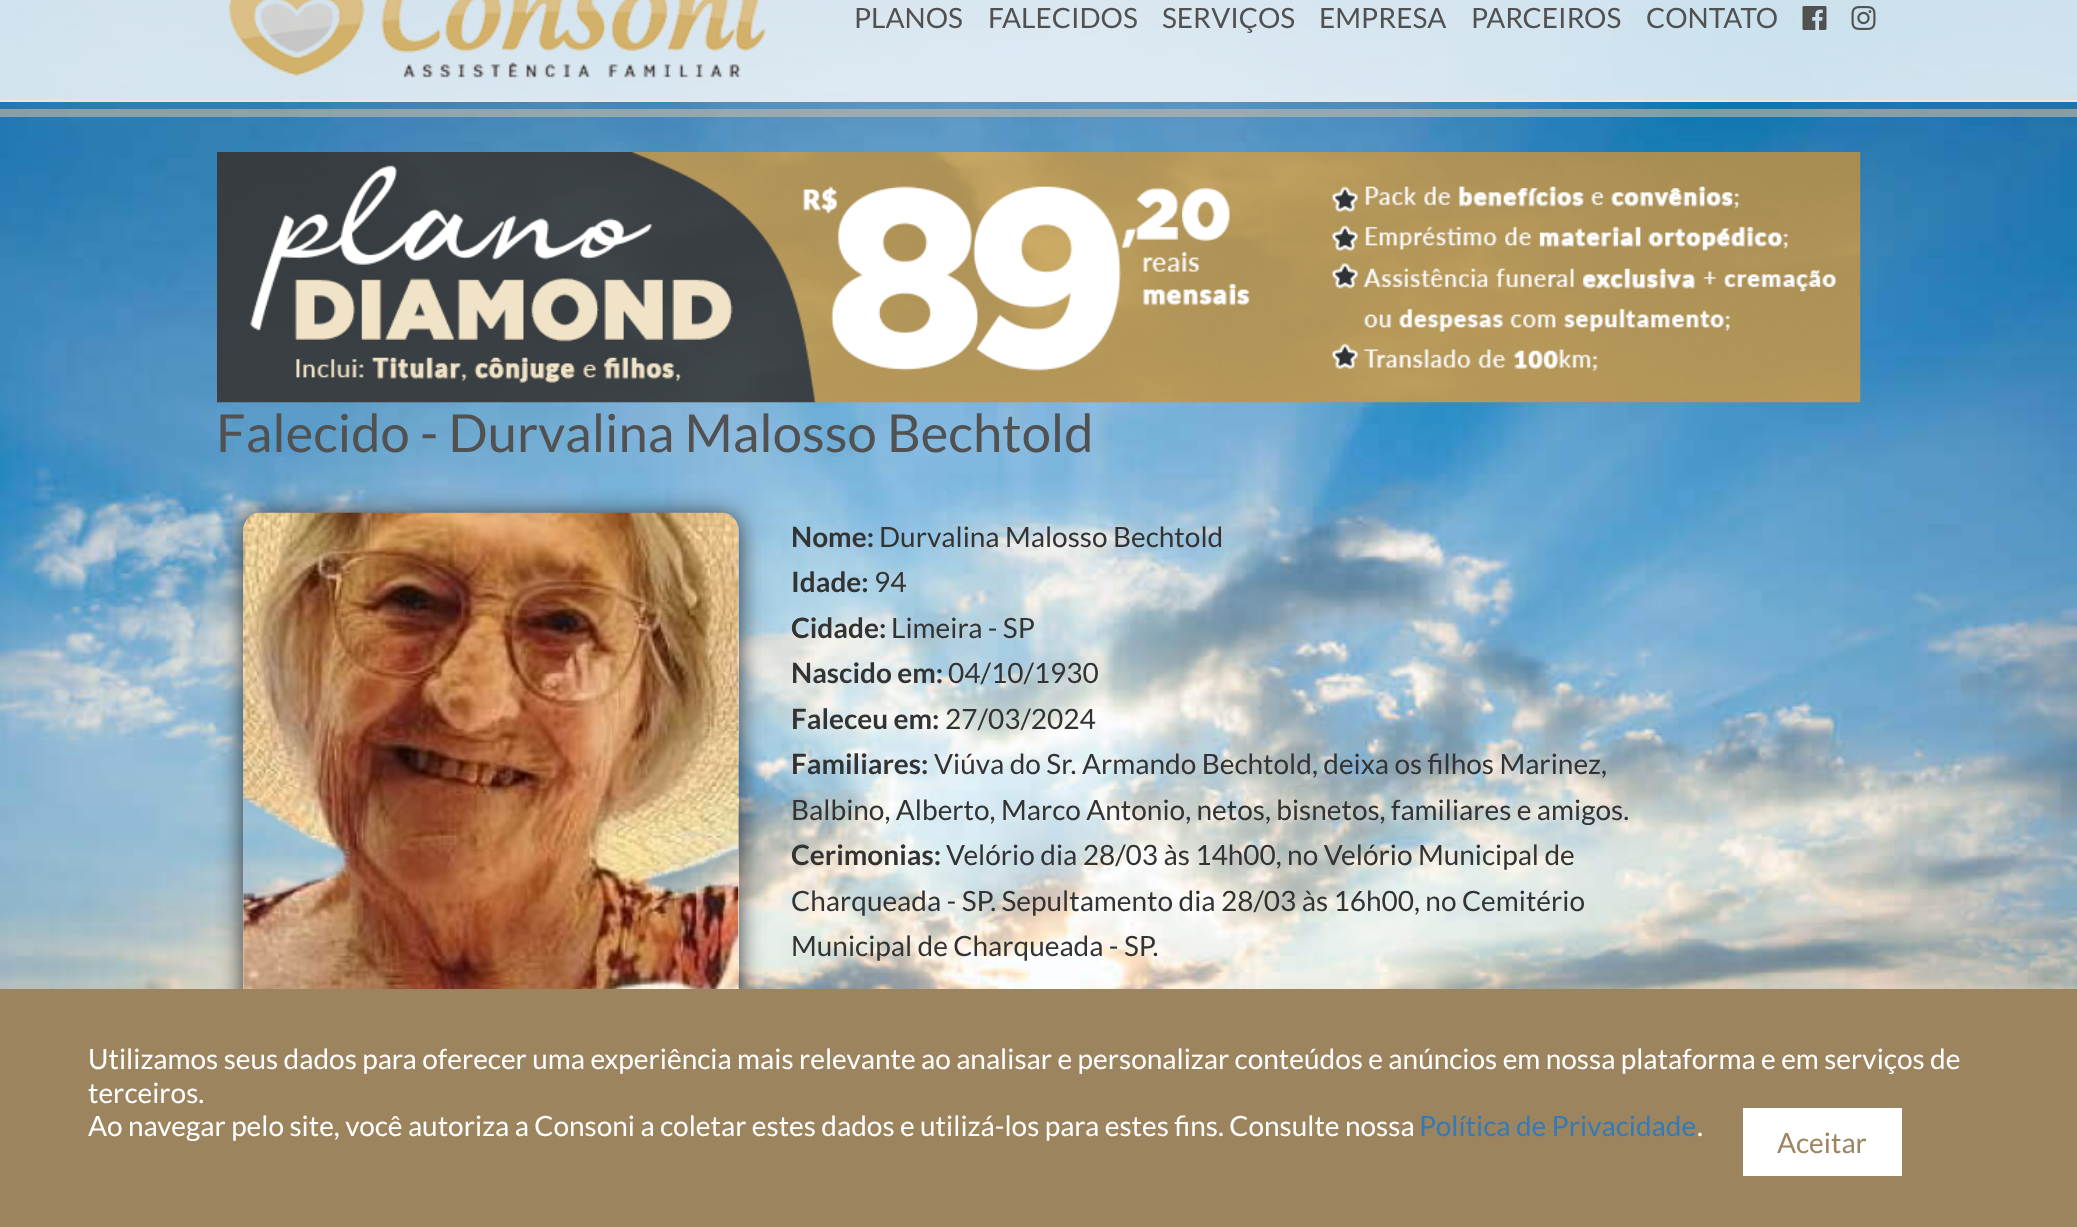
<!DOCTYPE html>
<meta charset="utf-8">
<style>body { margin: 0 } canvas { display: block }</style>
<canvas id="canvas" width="2077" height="1227"></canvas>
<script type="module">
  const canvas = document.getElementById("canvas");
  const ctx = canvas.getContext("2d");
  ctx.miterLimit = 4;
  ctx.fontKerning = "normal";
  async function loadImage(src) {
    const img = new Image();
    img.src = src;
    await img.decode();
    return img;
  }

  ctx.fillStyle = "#ffffff";
  ctx.fillRect(0, 0, 2077, 1227);
  ctx.drawImage(await loadImage("img4.png"), 0, 0, 2077, 989);
  ctx.fillStyle = "rgba(255, 255, 255, 0.8)";
  ctx.fillRect(0, 0, 2077, 100);
  ctx.fillStyle = "#e7e7e7";
  ctx.fillRect(0, 100, 2077, 2);
  ctx.drawImage(await loadImage("img1.png"), 228, 0, 539, 78);
  ctx.font = "28px Lato";
  ctx.fillStyle = "#515151";
  ctx.fillText("PLANOS", 854, 28);
  ctx.fillText("FALECIDOS", 988, 28);
  ctx.fillText("SERVIÇOS", 1162, 28);
  ctx.fillText("EMPRESA", 1319, 28);
  ctx.fillText("PARCEIROS", 1471, 28);
  ctx.fillText("CONTATO", 1646, 28);
  ctx.drawImage(await loadImage("img2.png"), 1802, 6, 25, 24);
  ctx.drawImage(await loadImage("img3.png"), 1851, 6, 25, 24);
  ctx.fillStyle = "rgba(200, 186, 163, 0.6)";
  ctx.fillRect(0, 109, 2077, 8);
  ctx.drawImage(await loadImage("img5.png"), 217, 152, 1644, 251);
  ctx.font = "52.5px Lato";
  ctx.fillStyle = "#515151";
  ctx.fillText("Falecido - Durvalina Malosso Bechtold", 216, 452);
  ctx.save();
  ctx.beginPath();
  ctx.moveTo(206, 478);
  ctx.lineTo(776, 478);
  ctx.lineTo(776, 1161);
  ctx.lineTo(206, 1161);
  ctx.closePath();
  ctx.moveTo(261, 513);
  ctx.lineTo(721, 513);
  ctx.bezierCurveTo(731, 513, 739, 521, 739, 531);
  ctx.lineTo(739, 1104);
  ctx.bezierCurveTo(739, 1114, 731, 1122, 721, 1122);
  ctx.lineTo(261, 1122);
  ctx.bezierCurveTo(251, 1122, 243, 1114, 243, 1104);
  ctx.lineTo(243, 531);
  ctx.bezierCurveTo(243, 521, 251, 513, 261, 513);
  ctx.closePath();
  ctx.clip("evenodd");
  ctx.fillStyle = "#323232";
  ctx.filter = "blur(12px)";
  ctx.beginPath();
  ctx.roundRect(243, 515, 496, 609, 18);
  ctx.fill();
  ctx.filter = "none";
  ctx.restore();
  ctx.drawImage(await loadImage("img6.png"), 243, 512, 496, 477);
  ctx.font = "bold 28px Lato";
  ctx.fillStyle = "#333333";
  ctx.fillText("Nome:", 791, 547);
  ctx.font = "28px Lato";
  ctx.fillText("Durvalina Malosso Bechtold", 879, 547);
  ctx.font = "bold 28px Lato";
  ctx.fillText("Idade:", 791, 592);
  ctx.font = "28px Lato";
  ctx.fillText("94", 874, 592);
  ctx.font = "bold 28px Lato";
  ctx.fillText("Cidade:", 791, 638);
  ctx.font = "28px Lato";
  ctx.fillText("Limeira - SP", 891, 638);
  ctx.font = "bold 28px Lato";
  ctx.fillText("Nascido em:", 791, 683);
  ctx.font = "28px Lato";
  ctx.fillText("04/10/1930", 948, 683);
  ctx.font = "bold 28px Lato";
  ctx.fillText("Faleceu em:", 791, 729);
  ctx.font = "28px Lato";
  ctx.fillText("27/03/2024", 945, 729);
  ctx.font = "bold 28px Lato";
  ctx.fillText("Familiares:", 791, 774);
  ctx.font = "28px Lato";
  ctx.fillText("Viúva do Sr. Armando Bechtold, deixa os filhos Marinez,", 934, 774);
  ctx.fillText("Balbino, Alberto, Marco Antonio, netos, bisnetos, familiares e amigos.", 791, 820);
  ctx.font = "bold 28px Lato";
  ctx.fillText("Cerimonias:", 791, 865);
  ctx.font = "28px Lato";
  ctx.fillText("Velório dia 28/03 às 14h00, no Velório Municipal de", 946, 865);
  ctx.fillText("Charqueada - SP. Sepultamento dia 28/03 às 16h00, no Cemitério", 791, 911);
  ctx.fillText("Municipal de Charqueada - SP.", 791, 956);
  ctx.fillStyle = "#9c845f";
  ctx.fillRect(0, 989, 2077, 238);
  ctx.fillStyle = "#ffffff";
  ctx.fillText("Utilizamos seus dados para oferecer uma experiência mais relevante ao analisar e personalizar conteúdos e anúncios em nossa plataforma e em serviços de", 88, 1069);
  ctx.fillText("terceiros.", 88, 1103);
  ctx.fillText("Ao navegar pelo site, você autoriza a Consoni a coletar estes dados e utilizá-los para estes fins. Consulte nossa", 88, 1136);
  ctx.fillStyle = "#337ab7";
  ctx.fillText("Política de Privacidade", 1419, 1136);
  ctx.fillStyle = "#ffffff";
  ctx.fillText(".", 1697, 1136);
  ctx.fillRect(1743, 1108, 159, 68);
  ctx.fillStyle = "#9c845f";
  ctx.fillText("Aceitar", 1777, 1153);
</script>
